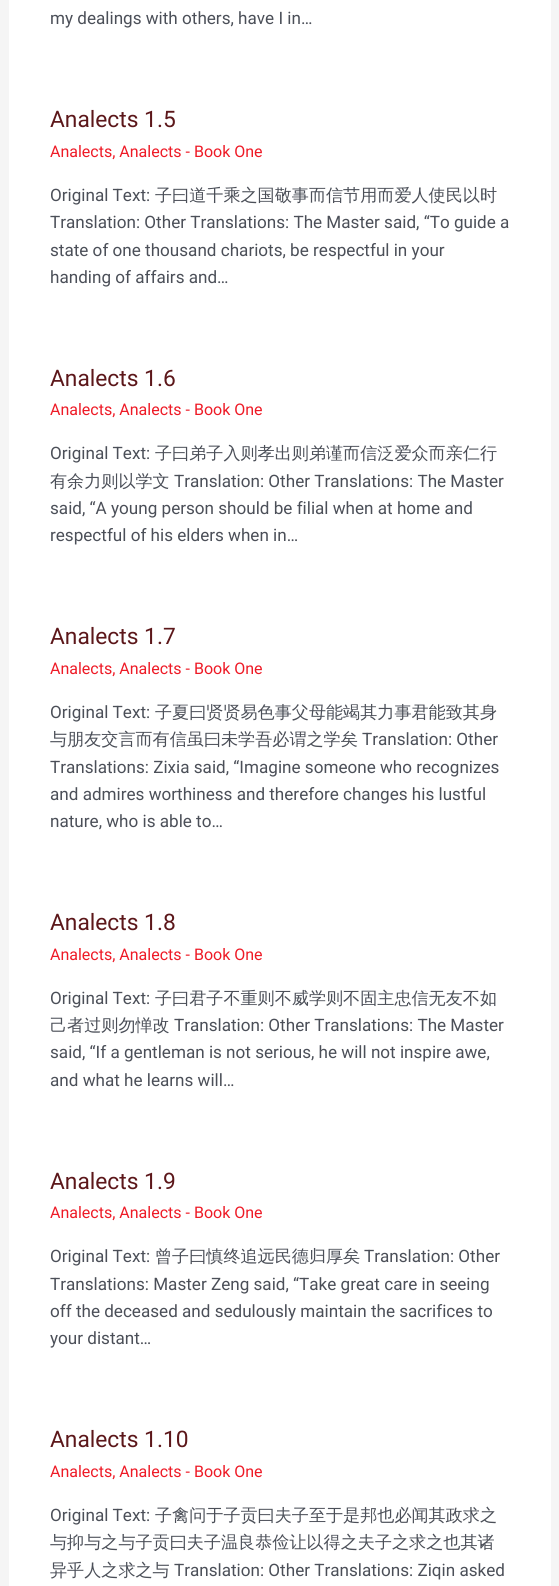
#include <cairo.h>
#include <math.h>
#include <stddef.h>


static void rgb(cairo_t *cr, int r, int g, int b)
{
	cairo_set_source_rgb(cr, r / 255.0, g / 255.0, b / 255.0);
}

static void face(cairo_t *cr, const char *family, double size, int italic, int bold)
{
	cairo_select_font_face(cr, family, italic ? CAIRO_FONT_SLANT_ITALIC : CAIRO_FONT_SLANT_NORMAL,
		bold ? CAIRO_FONT_WEIGHT_BOLD : CAIRO_FONT_WEIGHT_NORMAL);
	cairo_set_font_size(cr, size);
}

static void label(cairo_t *cr, double x, double y, const char *s)
{
	cairo_move_to(cr, x, y);
	cairo_show_text(cr, s);
}

static void rect(cairo_t *cr, double x, double y, double w, double h)
{
	cairo_rectangle(cr, x, y, w, h);
	cairo_fill(cr);
}

static void draw(cairo_t *cr) {
	rgb(cr, 245, 245, 245);
	cairo_paint(cr);
	rgb(cr, 255, 255, 255);
	rect(cr, 9, 0, 542, 1586);
	face(cr, "Roboto", 17.1, 0, 0);
	rgb(cr, 75, 79, 88);
	label(cr, 50, 24, "my dealings with others, have I in…");
	face(cr, "Roboto", 22.75, 0, 0);
	rgb(cr, 92, 23, 26);
	label(cr, 50, 127, "Analects 1.5");
	face(cr, "Roboto", 16, 0, 0);
	rgb(cr, 238, 26, 38);
	label(cr, 50, 157, "Analects, Analects - Book One");
	face(cr, "Roboto", 17.1, 0, 0);
	rgb(cr, 75, 79, 88);
	label(cr, 50, 201, "Original Text:");
	face(cr, "WenQuanYi Zen Hei Medium", 17.1, 0, 0);
	label(cr, 155, 201, "子曰道千乘之国敬事而信节用而爱人使民以时");
	face(cr, "Roboto", 17.1, 0, 0);
	label(cr, 50, 228, "Translation: Other Translations: The Master said, “To guide a");
	label(cr, 50, 256, "state of one thousand chariots, be respectful in your");
	label(cr, 50, 283, "handing of affairs and…");
	face(cr, "Roboto", 22.75, 0, 0);
	rgb(cr, 92, 23, 26);
	label(cr, 50, 386, "Analects 1.6");
	face(cr, "Roboto", 16, 0, 0);
	rgb(cr, 238, 26, 38);
	label(cr, 50, 415, "Analects, Analects - Book One");
	face(cr, "Roboto", 17.1, 0, 0);
	rgb(cr, 75, 79, 88);
	label(cr, 50, 459, "Original Text:");
	face(cr, "WenQuanYi Zen Hei Medium", 17.1, 0, 0);
	label(cr, 155, 459, "子曰弟子入则孝出则弟谨而信泛爱众而亲仁行");
	label(cr, 50, 487, "有余力则以学文");
	face(cr, "Roboto", 17.1, 0, 0);
	label(cr, 174, 487, "Translation: Other Translations: The Master");
	label(cr, 50, 514, "said, “A young person should be filial when at home and");
	label(cr, 50, 541, "respectful of his elders when in…");
	face(cr, "Roboto", 22.75, 0, 0);
	rgb(cr, 92, 23, 26);
	label(cr, 50, 644, "Analects 1.7");
	face(cr, "Roboto", 16, 0, 0);
	rgb(cr, 238, 26, 38);
	label(cr, 50, 674, "Analects, Analects - Book One");
	face(cr, "Roboto", 17.1, 0, 0);
	rgb(cr, 75, 79, 88);
	label(cr, 50, 718, "Original Text:");
	face(cr, "WenQuanYi Zen Hei Medium", 17.1, 0, 0);
	label(cr, 155, 718, "子夏曰贤贤易色事父母能竭其力事君能致其身");
	label(cr, 50, 745, "与朋友交言而有信虽曰未学吾必谓之学矣");
	face(cr, "Roboto", 17.1, 0, 0);
	label(cr, 362, 745, "Translation: Other");
	label(cr, 50, 773, "Translations: Zixia said, “Imagine someone who recognizes");
	label(cr, 50, 800, "and admires worthiness and therefore changes his lustful");
	label(cr, 50, 827, "nature, who is able to…");
	face(cr, "Roboto", 22.75, 0, 0);
	rgb(cr, 92, 23, 26);
	label(cr, 50, 930, "Analects 1.8");
	face(cr, "Roboto", 16, 0, 0);
	rgb(cr, 238, 26, 38);
	label(cr, 50, 960, "Analects, Analects - Book One");
	face(cr, "Roboto", 17.1, 0, 0);
	rgb(cr, 75, 79, 88);
	label(cr, 50, 1004, "Original Text:");
	face(cr, "WenQuanYi Zen Hei Medium", 17.1, 0, 0);
	label(cr, 155, 1004, "子曰君子不重则不威学则不固主忠信无友不如");
	label(cr, 50, 1031, "己者过则勿惮改");
	face(cr, "Roboto", 17.1, 0, 0);
	label(cr, 174, 1031, "Translation: Other Translations: The Master");
	label(cr, 50, 1058, "said, “If a gentleman is not serious, he will not inspire awe,");
	label(cr, 50, 1086, "and what he learns will…");
	face(cr, "Roboto", 22.75, 0, 0);
	rgb(cr, 92, 23, 26);
	label(cr, 50, 1189, "Analects 1.9");
	face(cr, "Roboto", 16, 0, 0);
	rgb(cr, 238, 26, 38);
	label(cr, 50, 1218, "Analects, Analects - Book One");
	face(cr, "Roboto", 17.1, 0, 0);
	rgb(cr, 75, 79, 88);
	label(cr, 50, 1262, "Original Text:");
	face(cr, "WenQuanYi Zen Hei Medium", 17.1, 0, 0);
	label(cr, 155, 1262, "曾子曰慎终追远民德归厚矣");
	face(cr, "Roboto", 17.1, 0, 0);
	label(cr, 364, 1262, "Translation: Other");
	label(cr, 50, 1290, "Translations: Master Zeng said, “Take great care in seeing");
	label(cr, 50, 1317, "off the deceased and sedulously maintain the sacrifices to");
	label(cr, 50, 1344, "your distant…");
	face(cr, "Roboto", 22.75, 0, 0);
	rgb(cr, 92, 23, 26);
	label(cr, 50, 1447, "Analects 1.10");
	face(cr, "Roboto", 16, 0, 0);
	rgb(cr, 238, 26, 38);
	label(cr, 50, 1477, "Analects, Analects - Book One");
	face(cr, "Roboto", 17.1, 0, 0);
	rgb(cr, 75, 79, 88);
	label(cr, 50, 1521, "Original Text:");
	face(cr, "WenQuanYi Zen Hei Medium", 17.1, 0, 0);
	label(cr, 155, 1521, "子禽问于子贡曰夫子至于是邦也必闻其政求之");
	label(cr, 50, 1548, "与抑与之与子贡曰夫子温良恭俭让以得之夫子之求之也其诸");
	label(cr, 50, 1576, "异乎人之求之与");
	face(cr, "Roboto", 17.1, 0, 0);
	label(cr, 174, 1576, "Translation: Other Translations: Ziqin asked");
}

int main(void) {
	cairo_surface_t *surface = cairo_image_surface_create(CAIRO_FORMAT_RGB24, 559, 1586);
	cairo_t *cr = cairo_create(surface);
	cairo_font_options_t *options = cairo_font_options_create();
	cairo_font_options_set_hint_metrics(options, CAIRO_HINT_METRICS_OFF);
	cairo_font_options_set_hint_style(options, CAIRO_HINT_STYLE_NONE);
	cairo_set_font_options(cr, options);
	cairo_set_miter_limit(cr, 4);
	draw(cr);
	cairo_surface_write_to_png(surface, "render.png");
	cairo_font_options_destroy(options);
	cairo_destroy(cr);
	cairo_surface_destroy(surface);
	return 0;
}
